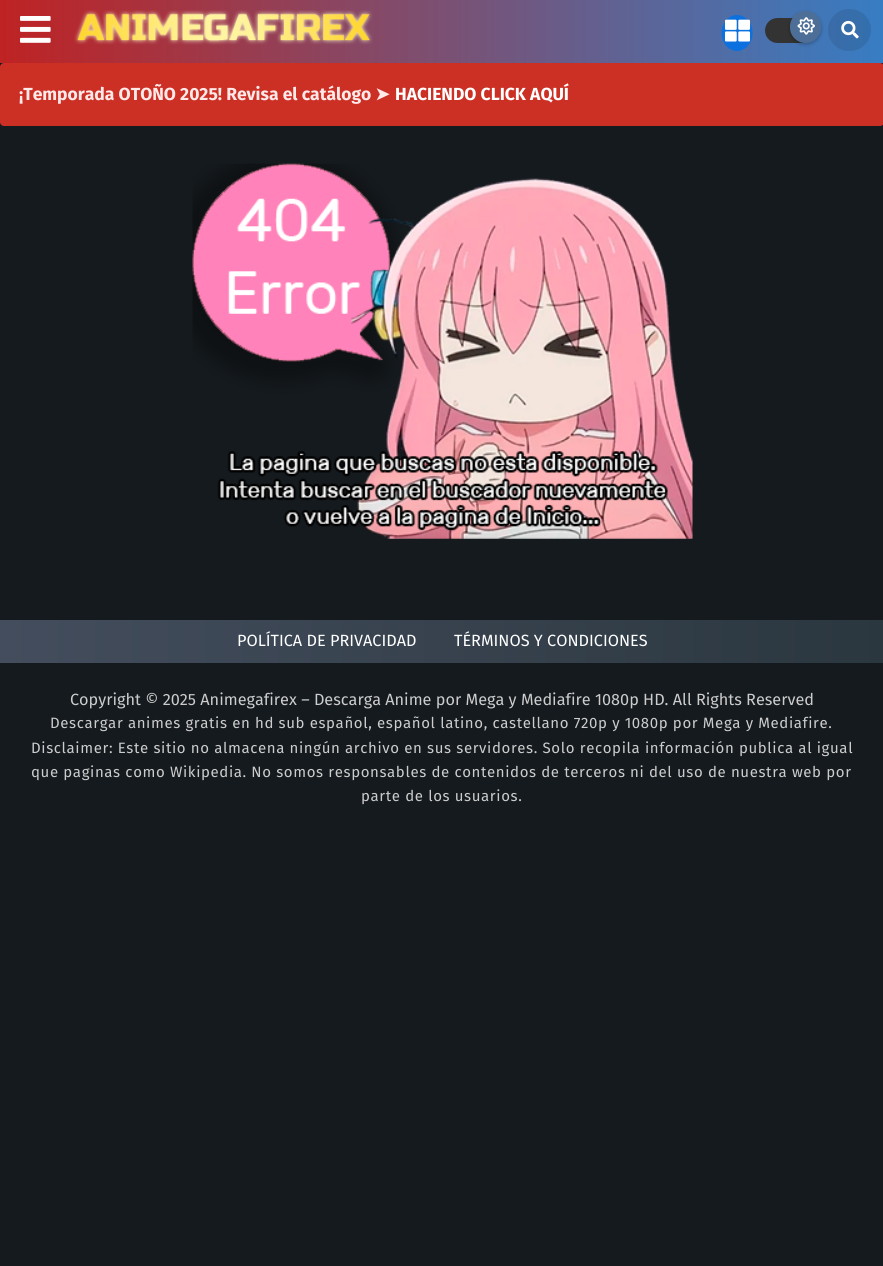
#include <cairo.h>
#include <math.h>
#include <stddef.h>


static void rgb(cairo_t *cr, int r, int g, int b)
{
	cairo_set_source_rgb(cr, r / 255.0, g / 255.0, b / 255.0);
}

static void face(cairo_t *cr, const char *family, double size, int italic, int bold)
{
	cairo_select_font_face(cr, family, italic ? CAIRO_FONT_SLANT_ITALIC : CAIRO_FONT_SLANT_NORMAL,
		bold ? CAIRO_FONT_WEIGHT_BOLD : CAIRO_FONT_WEIGHT_NORMAL);
	cairo_set_font_size(cr, size);
}

static void label(cairo_t *cr, double x, double y, const char *s)
{
	cairo_move_to(cr, x, y);
	cairo_show_text(cr, s);
}

static void tracked(cairo_t *cr, double x, double y, const char *s, double letter, double word)
{
	cairo_move_to(cr, x, y);
	while (*s) {
		char ch[5] = {0};
		int n = 0;
		do ch[n++] = *s++; while ((*s & 0xC0) == 0x80);
		cairo_show_text(cr, ch);
		cairo_rel_move_to(cr, letter + word * (*ch == ' '), 0);
	}
}

static void rect(cairo_t *cr, double x, double y, double w, double h)
{
	cairo_rectangle(cr, x, y, w, h);
	cairo_fill(cr);
}

static void rrect(cairo_t *cr, double x, double y, double w, double h, double r)
{
	cairo_new_sub_path(cr);
	cairo_arc(cr, x + w - r, y + h - r, r, 0, M_PI / 2);
	cairo_arc(cr, x + r, y + h - r, r, M_PI / 2, M_PI);
	cairo_arc(cr, x + r, y + r, r, M_PI, 1.5 * M_PI);
	cairo_arc(cr, x + w - r, y + r, r, 1.5 * M_PI, 2 * M_PI);
	cairo_close_path(cr);
}

static void soft_shadow(cairo_t *cr, double x, double y, double w, double h, double r, double blur, double alpha)
{
	cairo_push_group_with_content(cr, CAIRO_CONTENT_ALPHA);
	cairo_set_operator(cr, CAIRO_OPERATOR_SOURCE);
	for (int i = 15; i >= -15 && fmin(w, h) + blur * i / 3 > 0; i -= 2) {
		double e = blur * i / 6;
		cairo_set_source_rgba(cr, 0, 0, 0, alpha * erfc((i - 1) / 8.5) / 2);
		rrect(cr, x - e, y - e, w + 2 * e, h + 2 * e, fmax(0, fmin(r + e + blur * .6, fmin(w, h) / 2 + e)));
		cairo_fill(cr);
	}
	cairo_pattern_t *soft = cairo_pop_group(cr);
	cairo_mask(cr, soft);
	cairo_pattern_destroy(soft);
}

static void image(cairo_t *cr, const char *path, double x, double y, double w, double h)
{
	cairo_surface_t *image = cairo_image_surface_create_from_png(path);
	cairo_save(cr);
	cairo_set_source_surface(cr, image, x, y);
	cairo_rectangle(cr, x, y, w, h);
	cairo_fill(cr);
	cairo_restore(cr);
	cairo_surface_destroy(image);
}

static void draw(cairo_t *cr) {
	cairo_pattern_t *gradient;
	rgb(cr, 21, 26, 30);
	cairo_paint(cr);
	gradient = cairo_pattern_create_linear(0, 31, 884, 31);
	cairo_pattern_add_color_stop_rgba(gradient, 0, 0.749, 0.137, 0.137, 1);
	cairo_pattern_add_color_stop_rgba(gradient, 1, 0.216, 0.49, 0.765, 1);
	cairo_set_source(cr, gradient);
	cairo_pattern_destroy(gradient);
	rect(cr, 0, 0, 883, 63);
	image(cr, "image0.png", 20, 16, 31, 27);
	image(cr, "image1.png", 74, 10, 299, 35);
	rgb(cr, 12, 112, 222);
	cairo_new_path(cr);
	cairo_move_to(cr, 737, 15);
	cairo_curve_to(cr, 745.5, 15, 752.5, 23, 752.5, 33);
	cairo_curve_to(cr, 752.5, 43, 745.5, 51, 737, 51);
	cairo_curve_to(cr, 728.5, 51, 721.5, 43, 721.5, 33);
	cairo_curve_to(cr, 721.5, 23, 728.5, 15, 737, 15);
	cairo_close_path(cr);
	cairo_fill(cr);
	image(cr, "image2.png", 725, 19, 25, 23);
	rgb(cr, 51, 51, 51);
	rrect(cr, 765, 18, 50, 25, 12.5);
	cairo_fill(cr);
	rgb(cr, 0, 0, 0);
	soft_shadow(cr, 790, 13, 31, 31, 15.5, 2, 0.3);
	rgb(cr, 77, 111, 151);
	rrect(cr, 790, 11, 31, 32, 15.5);
	cairo_fill(cr);
	image(cr, "image3.png", 797, 17, 18, 18);
	cairo_set_source_rgba(cr, 0, 0, 0, 0.1);
	rrect(cr, 828, 9, 43, 42, 21);
	cairo_fill(cr);
	image(cr, "image4.png", 841, 20, 18, 19);
	rgb(cr, 204, 47, 36);
	rrect(cr, 0, 63, 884, 63, 4);
	cairo_fill(cr);
	face(cr, "Fira Sans", 17.5, 0, 1);
	rgb(cr, 255, 233, 233);
	label(cr, 19, 100, "¡Temporada OTOÑO 2025! Revisa el catálogo");
	face(cr, "DejaVu Sans", 17.5, 0, 1);
	label(cr, 375, 100, "➤");
	face(cr, "Fira Sans", 17.5, 0, 1);
	rgb(cr, 255, 255, 255);
	label(cr, 395, 100, "HACIENDO CLICK AQUÍ");
	image(cr, "image5.png", 192, 163, 501, 376);
	gradient = cairo_pattern_create_linear(0, 641, 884, 641);
	cairo_pattern_add_color_stop_rgba(gradient, 0, 0.263, 0.302, 0.365, 1);
	cairo_pattern_add_color_stop_rgba(gradient, 1, 0.169, 0.216, 0.247, 1);
	cairo_set_source(cr, gradient);
	cairo_pattern_destroy(gradient);
	rect(cr, 0, 620, 883, 43);
	face(cr, "Fira Sans", 16.25, 0, 0);
	rgb(cr, 255, 255, 255);
	label(cr, 237, 646, "POLÍTICA DE PRIVACIDAD");
	label(cr, 454, 646, "TÉRMINOS Y CONDICIONES");
	rgb(cr, 204, 204, 204);
	label(cr, 70, 705, "Copyright © 2025 Animegafirex – Descarga Anime por Mega y Mediafire 1080p HD. All Rights Reserved");
	face(cr, "Fira Sans", 15, 0, 0);
	tracked(cr, 50, 728, "Descargar animes gratis en hd sub español, español latino, castellano 720p y 1080p por Mega y Mediafire.", 0.62, 0);
	tracked(cr, 31, 753, "Disclaimer: Este sitio no almacena ningún archivo en sus servidores. Solo recopila información publica al igual", 0.62, 0);
	tracked(cr, 31, 777, "que paginas como Wikipedia. No somos responsables de contenidos de terceros ni del uso de nuestra web por", 0.62, 0);
	tracked(cr, 361, 801, "parte de los usuarios.", 0.62, 0);
}

int main(void) {
	cairo_surface_t *surface = cairo_image_surface_create(CAIRO_FORMAT_RGB24, 883, 1266);
	cairo_t *cr = cairo_create(surface);
	cairo_font_options_t *options = cairo_font_options_create();
	cairo_font_options_set_hint_metrics(options, CAIRO_HINT_METRICS_OFF);
	cairo_font_options_set_hint_style(options, CAIRO_HINT_STYLE_NONE);
	cairo_set_font_options(cr, options);
	cairo_set_miter_limit(cr, 4);
	draw(cr);
	cairo_surface_write_to_png(surface, "render.png");
	cairo_font_options_destroy(options);
	cairo_destroy(cr);
	cairo_surface_destroy(surface);
	return 0;
}
